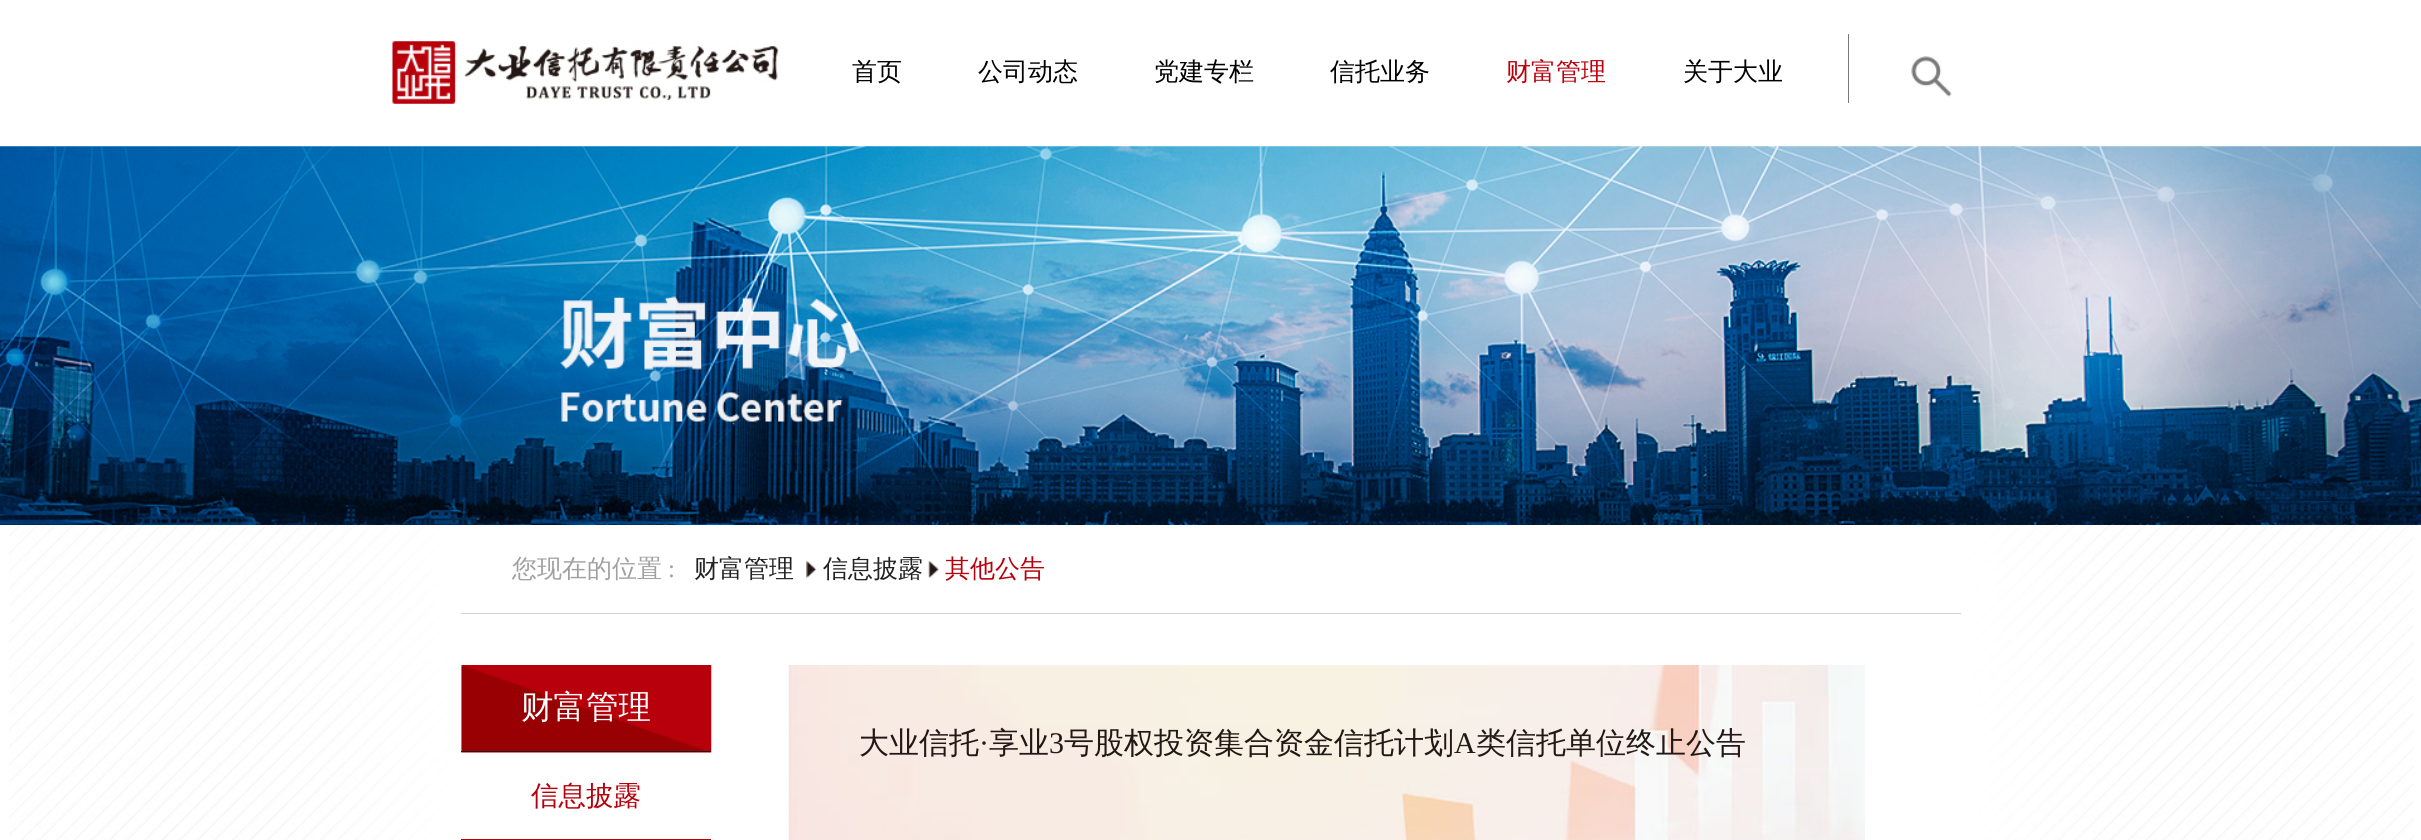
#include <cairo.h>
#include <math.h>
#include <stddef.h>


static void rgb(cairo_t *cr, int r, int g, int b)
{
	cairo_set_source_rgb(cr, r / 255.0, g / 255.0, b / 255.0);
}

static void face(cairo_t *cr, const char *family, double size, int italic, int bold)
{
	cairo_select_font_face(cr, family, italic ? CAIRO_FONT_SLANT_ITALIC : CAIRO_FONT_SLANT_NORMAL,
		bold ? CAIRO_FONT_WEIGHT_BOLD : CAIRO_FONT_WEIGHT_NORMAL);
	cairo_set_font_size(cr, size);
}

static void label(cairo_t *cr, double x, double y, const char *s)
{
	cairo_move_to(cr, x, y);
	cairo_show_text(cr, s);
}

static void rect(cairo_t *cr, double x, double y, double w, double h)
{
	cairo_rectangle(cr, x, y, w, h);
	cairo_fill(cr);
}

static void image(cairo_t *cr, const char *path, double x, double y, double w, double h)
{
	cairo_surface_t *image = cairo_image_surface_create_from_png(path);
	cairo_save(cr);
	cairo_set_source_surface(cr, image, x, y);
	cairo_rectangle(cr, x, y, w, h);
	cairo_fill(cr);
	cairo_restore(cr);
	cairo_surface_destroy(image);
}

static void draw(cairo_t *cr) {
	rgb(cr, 255, 255, 255);
	cairo_paint(cr);
	image(cr, "image0.png", 9, 146, 2405, 694);
	image(cr, "image1.png", 392, 41, 387, 63);
	face(cr, "WenQuanYi Zen Hei Medium", 25, 0, 0);
	rgb(cr, 0, 0, 0);
	label(cr, 852, 80, "首页");
	label(cr, 978, 80, "公司动态");
	label(cr, 1154, 80, "党建专栏");
	label(cr, 1330, 80, "信托业务");
	rgb(cr, 184, 0, 11);
	label(cr, 1506, 80, "财富管理");
	rgb(cr, 0, 0, 0);
	label(cr, 1683, 80, "关于大业");
	rgb(cr, 121, 121, 121);
	rect(cr, 1848, 34, 1, 69);
	image(cr, "image2.png", 1911, 56, 41, 41);
	image(cr, "image3.png", 0, 146, 2421, 379);
	rgb(cr, 210, 210, 210);
	rect(cr, 461, 613, 1500, 1);
	rgb(cr, 160, 160, 160);
	label(cr, 512, 577, "您现在的位置");
	face(cr, "Liberation Serif", 25, 0, 0);
	label(cr, 668, 577, ":");
	face(cr, "WenQuanYi Zen Hei Medium", 25, 0, 0);
	rgb(cr, 34, 34, 34);
	label(cr, 694, 577, "财富管理");
	image(cr, "image4.png", 806, 561, 11, 17);
	label(cr, 823, 577, "信息披露");
	image(cr, "image5.png", 928, 561, 11, 17);
	rgb(cr, 184, 0, 11);
	label(cr, 945, 577, "其他公告");
	image(cr, "image6.png", 461, 665, 251, 88);
	rgb(cr, 35, 24, 21);
	rect(cr, 461, 751, 250, 1);
	face(cr, "WenQuanYi Zen Hei Medium", 32.5, 0, 0);
	rgb(cr, 255, 255, 255);
	label(cr, 521, 718, "财富管理");
	rgb(cr, 184, 0, 11);
	rect(cr, 461, 839, 250, 1);
	face(cr, "WenQuanYi Zen Hei Medium", 27.5, 0, 0);
	label(cr, 531, 805, "信息披露");
	image(cr, "image7.png", 788, 665, 1077, 175);
	face(cr, "WenQuanYi Zen Hei Medium", 30, 0, 0);
	rgb(cr, 35, 24, 21);
	label(cr, 859, 753, "大业信托");
	face(cr, "Liberation Serif", 30, 0, 0);
	label(cr, 979, 753, "·");
	face(cr, "WenQuanYi Zen Hei Medium", 30, 0, 0);
	label(cr, 989, 753, "享业");
	face(cr, "Liberation Serif", 30, 0, 0);
	label(cr, 1049, 753, "3");
	face(cr, "WenQuanYi Zen Hei Medium", 30, 0, 0);
	label(cr, 1064, 753, "号股权投资集合资金信托计划");
	face(cr, "Liberation Serif", 30, 0, 0);
	label(cr, 1454, 753, "A");
	face(cr, "WenQuanYi Zen Hei Medium", 30, 0, 0);
	label(cr, 1476, 753, "类信托单位终止公告");
}

int main(void) {
	cairo_surface_t *surface = cairo_image_surface_create(CAIRO_FORMAT_RGB24, 2421, 840);
	cairo_t *cr = cairo_create(surface);
	cairo_font_options_t *options = cairo_font_options_create();
	cairo_font_options_set_hint_metrics(options, CAIRO_HINT_METRICS_OFF);
	cairo_font_options_set_hint_style(options, CAIRO_HINT_STYLE_NONE);
	cairo_set_font_options(cr, options);
	cairo_set_miter_limit(cr, 4);
	draw(cr);
	cairo_surface_write_to_png(surface, "render.png");
	cairo_font_options_destroy(options);
	cairo_destroy(cr);
	cairo_surface_destroy(surface);
	return 0;
}
